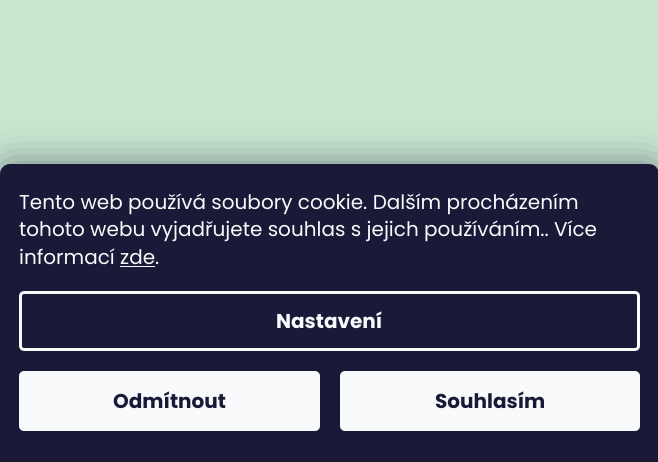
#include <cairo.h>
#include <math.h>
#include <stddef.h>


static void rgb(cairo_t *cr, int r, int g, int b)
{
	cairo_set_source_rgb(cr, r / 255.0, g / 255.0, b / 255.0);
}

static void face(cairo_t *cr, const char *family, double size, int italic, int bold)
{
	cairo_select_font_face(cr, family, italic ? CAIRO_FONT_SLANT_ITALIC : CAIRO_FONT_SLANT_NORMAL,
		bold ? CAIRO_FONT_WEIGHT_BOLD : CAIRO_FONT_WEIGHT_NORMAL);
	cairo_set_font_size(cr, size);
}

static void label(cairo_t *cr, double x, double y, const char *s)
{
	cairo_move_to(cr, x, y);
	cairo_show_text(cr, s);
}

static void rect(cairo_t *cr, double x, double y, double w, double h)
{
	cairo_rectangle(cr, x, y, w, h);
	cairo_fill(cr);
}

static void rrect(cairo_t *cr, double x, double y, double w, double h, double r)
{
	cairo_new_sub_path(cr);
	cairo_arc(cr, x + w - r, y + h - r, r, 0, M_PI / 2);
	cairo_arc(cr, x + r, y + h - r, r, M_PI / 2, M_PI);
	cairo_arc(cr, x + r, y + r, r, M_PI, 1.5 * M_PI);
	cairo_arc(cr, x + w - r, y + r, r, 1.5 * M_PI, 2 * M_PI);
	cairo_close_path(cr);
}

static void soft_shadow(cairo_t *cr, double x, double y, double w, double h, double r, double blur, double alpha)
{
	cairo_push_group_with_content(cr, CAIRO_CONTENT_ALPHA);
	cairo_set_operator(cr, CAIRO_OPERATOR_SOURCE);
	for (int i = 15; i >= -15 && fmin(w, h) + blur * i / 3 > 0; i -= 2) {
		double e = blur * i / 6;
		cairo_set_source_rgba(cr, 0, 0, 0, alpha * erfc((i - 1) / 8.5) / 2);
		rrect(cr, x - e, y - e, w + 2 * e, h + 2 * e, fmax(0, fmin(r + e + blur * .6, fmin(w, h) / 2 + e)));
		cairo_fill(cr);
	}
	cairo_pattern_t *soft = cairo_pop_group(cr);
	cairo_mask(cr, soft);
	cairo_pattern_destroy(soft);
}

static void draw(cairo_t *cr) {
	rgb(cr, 200, 231, 208);
	cairo_paint(cr);
	rgb(cr, 27, 25, 57);
	soft_shadow(cr, 0, 164, 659, 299, 10, 19, 0.5);
	rgb(cr, 26, 25, 55);
	cairo_new_path(cr);
	cairo_move_to(cr, 10, 164);
	cairo_line_to(cr, 649, 164);
	cairo_curve_to(cr, 654.5, 164, 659, 168.5, 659, 174);
	cairo_line_to(cr, 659, 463);
	cairo_line_to(cr, 0, 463);
	cairo_line_to(cr, 0, 174);
	cairo_curve_to(cr, 0, 168.5, 4.5, 164, 10, 164);
	cairo_close_path(cr);
	cairo_fill(cr);
	face(cr, "Poppins", 20, 0, 0);
	rgb(cr, 248, 250, 251);
	label(cr, 19, 209, "Tento web používá soubory cookie. Dalším procházením");
	label(cr, 19, 236, "tohoto webu vyjadřujete souhlas s jejich používáním.. Více");
	label(cr, 19, 264, "informací zde.");
	rect(cr, 120, 266, 35, 1);
	rrect(cr, 20.5, 292.5, 618, 57, 3.5);
	cairo_set_line_width(cr, 3);
	cairo_stroke(cr);
	face(cr, "Poppins", 20, 0, 1);
	label(cr, 276, 328, "Nastavení");
	rrect(cr, 19, 371, 301, 60, 5);
	cairo_fill(cr);
	rgb(cr, 26, 25, 55);
	label(cr, 113, 408, "Odmítnout");
	rgb(cr, 248, 250, 251);
	rrect(cr, 340, 371, 300, 60, 5);
	cairo_fill(cr);
	rgb(cr, 26, 25, 55);
	label(cr, 435, 408, "Souhlasím");
}

int main(void) {
	cairo_surface_t *surface = cairo_image_surface_create(CAIRO_FORMAT_RGB24, 658, 462);
	cairo_t *cr = cairo_create(surface);
	cairo_font_options_t *options = cairo_font_options_create();
	cairo_font_options_set_hint_metrics(options, CAIRO_HINT_METRICS_OFF);
	cairo_font_options_set_hint_style(options, CAIRO_HINT_STYLE_NONE);
	cairo_set_font_options(cr, options);
	cairo_set_miter_limit(cr, 4);
	draw(cr);
	cairo_surface_write_to_png(surface, "render.png");
	cairo_font_options_destroy(options);
	cairo_destroy(cr);
	cairo_surface_destroy(surface);
	return 0;
}
